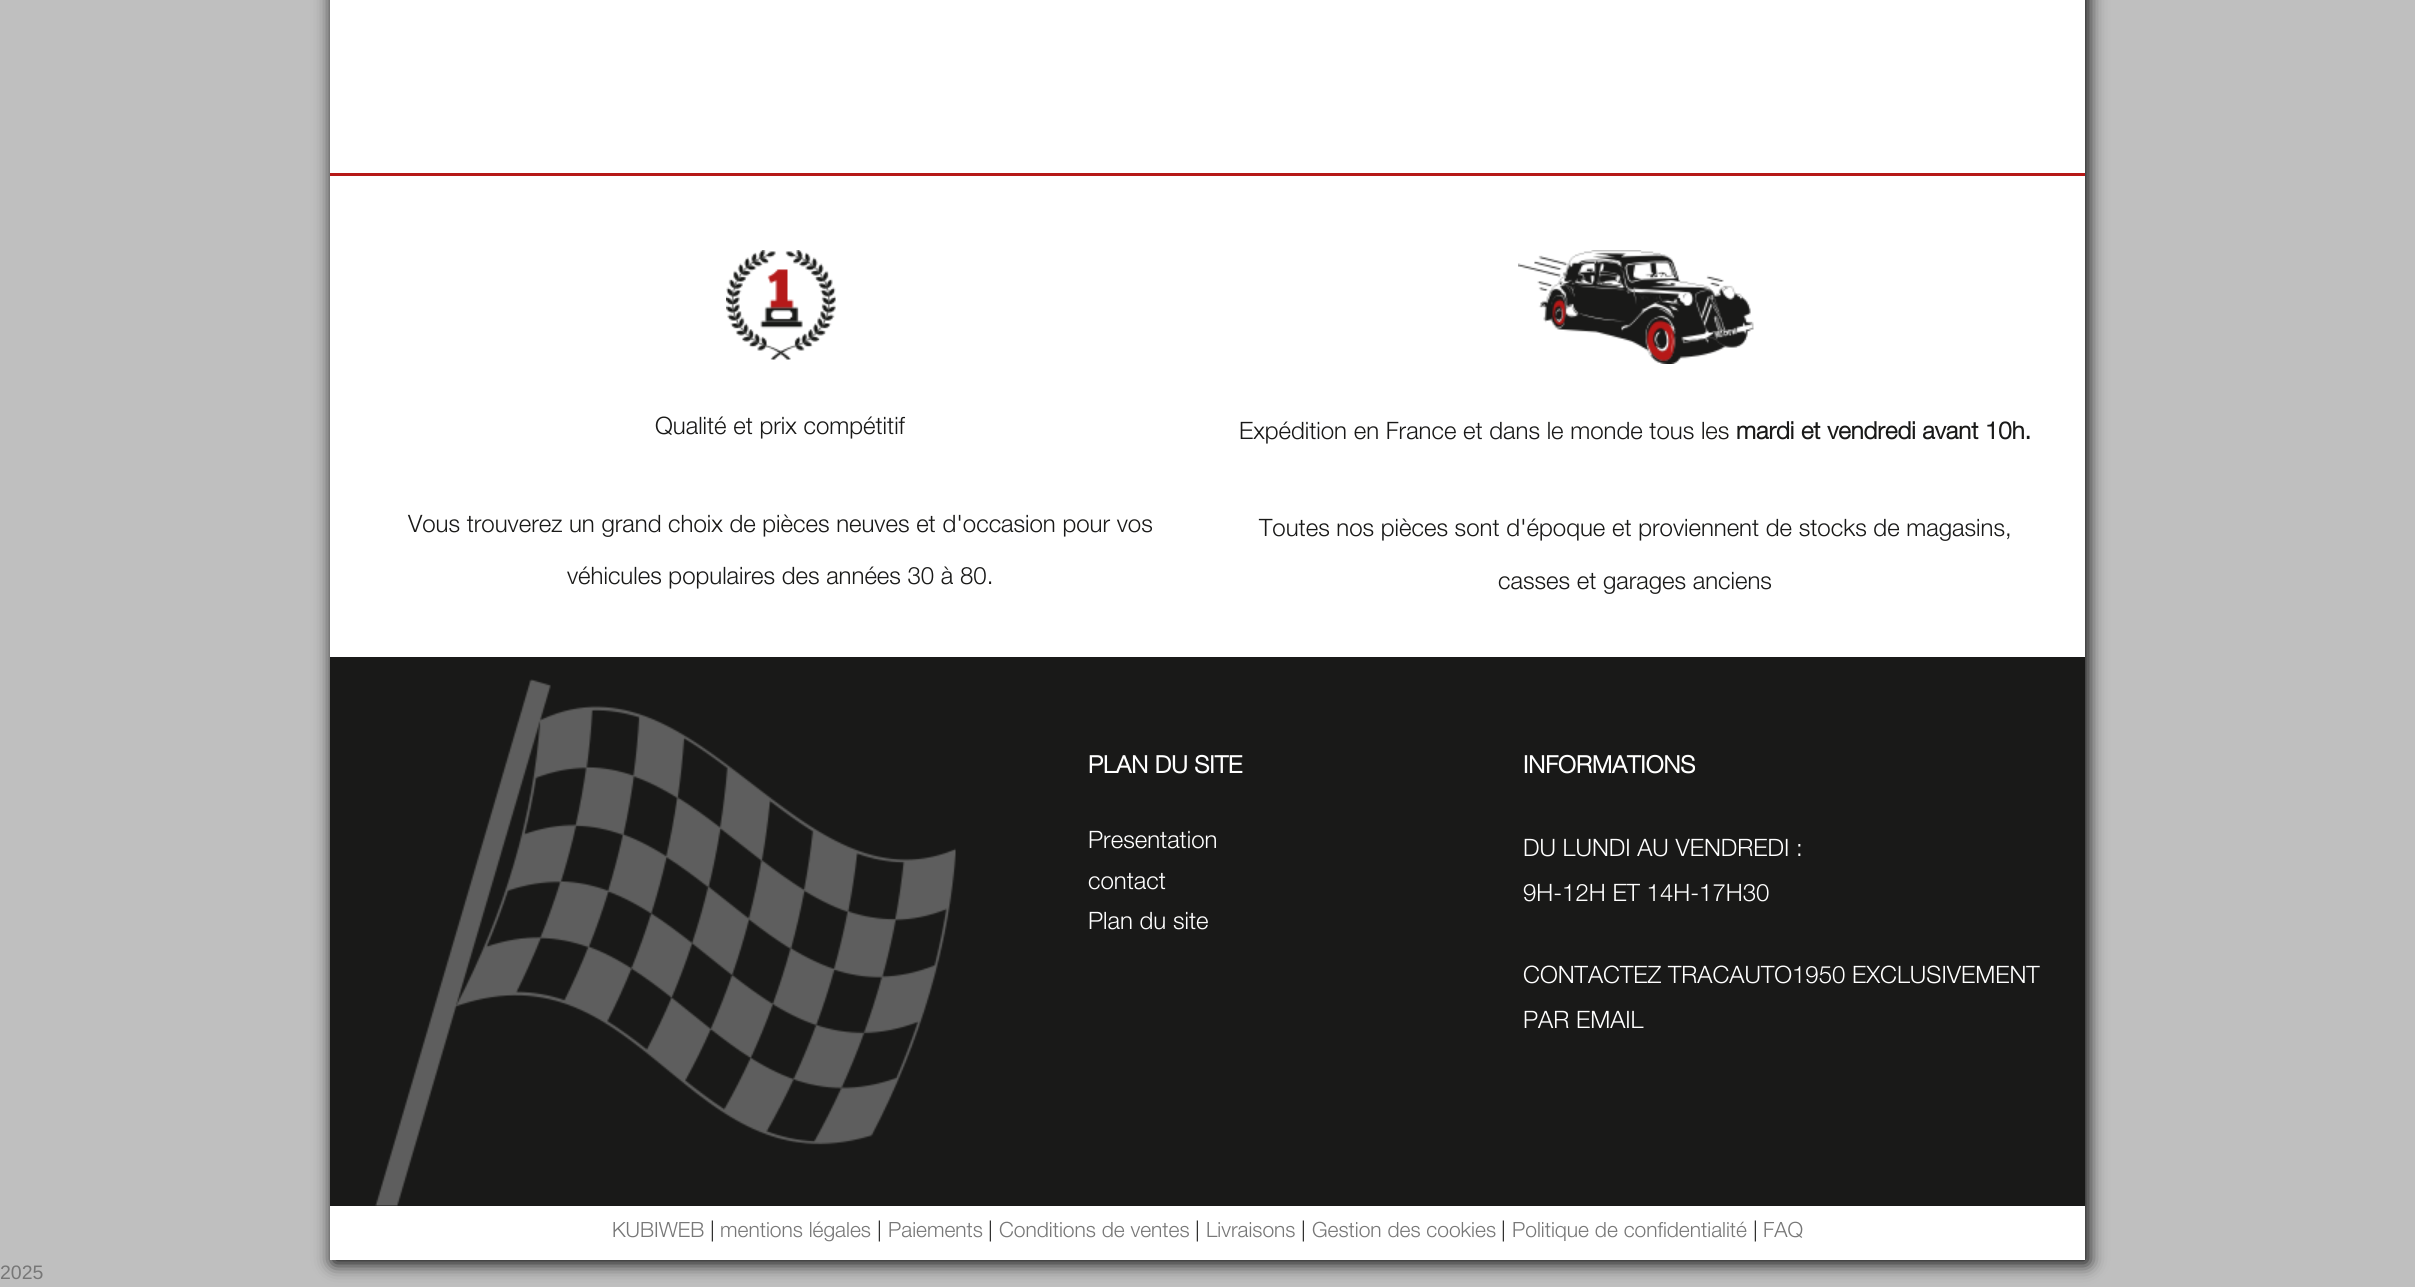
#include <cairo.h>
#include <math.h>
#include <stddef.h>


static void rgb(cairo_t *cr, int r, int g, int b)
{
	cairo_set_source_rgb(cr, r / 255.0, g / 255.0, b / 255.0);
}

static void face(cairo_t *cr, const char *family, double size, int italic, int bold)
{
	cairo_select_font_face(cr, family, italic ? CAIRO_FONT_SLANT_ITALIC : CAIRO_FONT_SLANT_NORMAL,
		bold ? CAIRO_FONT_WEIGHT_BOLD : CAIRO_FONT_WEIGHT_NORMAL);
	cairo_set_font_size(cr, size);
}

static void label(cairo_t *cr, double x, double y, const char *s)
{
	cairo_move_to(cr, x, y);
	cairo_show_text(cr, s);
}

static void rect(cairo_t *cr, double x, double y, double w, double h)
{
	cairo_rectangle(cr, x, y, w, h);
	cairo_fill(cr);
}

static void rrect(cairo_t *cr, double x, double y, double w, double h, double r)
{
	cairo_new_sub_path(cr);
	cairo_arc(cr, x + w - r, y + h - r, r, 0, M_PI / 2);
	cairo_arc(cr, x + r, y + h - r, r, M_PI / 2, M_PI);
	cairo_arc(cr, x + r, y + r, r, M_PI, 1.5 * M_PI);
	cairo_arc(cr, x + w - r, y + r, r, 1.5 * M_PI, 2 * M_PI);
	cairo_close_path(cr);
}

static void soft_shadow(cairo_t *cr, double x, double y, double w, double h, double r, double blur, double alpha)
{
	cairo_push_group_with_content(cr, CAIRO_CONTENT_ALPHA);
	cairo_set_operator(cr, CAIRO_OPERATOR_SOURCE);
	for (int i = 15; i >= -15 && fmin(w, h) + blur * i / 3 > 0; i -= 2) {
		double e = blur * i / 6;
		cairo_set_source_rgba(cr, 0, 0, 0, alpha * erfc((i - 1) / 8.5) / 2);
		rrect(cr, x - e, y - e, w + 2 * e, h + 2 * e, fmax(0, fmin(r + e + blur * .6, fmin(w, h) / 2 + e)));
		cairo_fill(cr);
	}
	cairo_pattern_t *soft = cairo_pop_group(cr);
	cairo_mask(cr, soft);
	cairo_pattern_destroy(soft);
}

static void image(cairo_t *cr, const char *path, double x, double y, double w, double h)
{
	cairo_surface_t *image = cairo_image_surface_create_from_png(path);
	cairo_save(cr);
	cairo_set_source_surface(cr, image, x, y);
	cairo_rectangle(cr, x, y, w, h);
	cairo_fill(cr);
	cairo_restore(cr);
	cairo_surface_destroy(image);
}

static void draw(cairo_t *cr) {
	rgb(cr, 191, 191, 191);
	cairo_paint(cr);
	rgb(cr, 0, 0, 0);
	soft_shadow(cr, 333, -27, 1755, 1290, 0, 9, 1);
	rgb(cr, 255, 255, 255);
	rect(cr, 330, 0, 1755, 173);
	rect(cr, 330, 176, 1755, 481);
	rgb(cr, 182, 24, 23);
	rect(cr, 330, 173, 1755, 3);
	image(cr, "image0.png", 726, 250, 110, 110);
	face(cr, "Helvetica Neue Light", 24, 0, 0);
	rgb(cr, 25, 25, 24);
	label(cr, 655, 434, "Qualité et prix compétitif");
	label(cr, 408, 532, "Vous trouverez un grand choix de pièces neuves et d'occasion pour vos");
	label(cr, 567, 584, "véhicules populaires des années 30 à 80.");
	image(cr, "image1.png", 1518, 250, 236, 114);
	label(cr, 1239, 439, "Expédition en France et dans le monde tous les");
	face(cr, "Helvetica Neue", 24, 0, 1);
	label(cr, 1736, 439, "mardi et vendredi avant 10h.");
	face(cr, "Helvetica Neue Light", 24, 0, 0);
	label(cr, 1259, 536, "Toutes nos pièces sont d'époque et proviennent de stocks de magasins,");
	label(cr, 1498, 589, "casses et garages anciens");
	rect(cr, 330, 657, 1755, 549);
	image(cr, "image2.png", 375, 679, 581, 527);
	face(cr, "Helvetica Neue", 24, 0, 1);
	rgb(cr, 255, 255, 255);
	label(cr, 1088, 773, "PLAN DU SITE");
	face(cr, "Helvetica Neue Light", 24, 0, 0);
	label(cr, 1088, 848, "Presentation");
	label(cr, 1088, 889, "contact");
	label(cr, 1088, 929, "Plan du site");
	face(cr, "Helvetica Neue", 24, 0, 1);
	label(cr, 1523, 773, "INFORMATIONS");
	face(cr, "Helvetica Neue Light", 24, 0, 0);
	label(cr, 1523, 856, "DU LUNDI AU VENDREDI :");
	label(cr, 1523, 901, "9H-12H ET 14H-17H30");
	label(cr, 1523, 983, "CONTACTEZ TRACAUTO1950 EXCLUSIVEMENT");
	label(cr, 1523, 1028, "PAR EMAIL");
	rect(cr, 330, 1206, 1755, 54);
	face(cr, "Helvetica Neue Light", 21, 0, 0);
	rgb(cr, 119, 119, 119);
	label(cr, 612, 1237, "KUBIWEB");
	rgb(cr, 25, 25, 24);
	label(cr, 710, 1237, "|");
	rgb(cr, 119, 119, 119);
	label(cr, 720, 1237, "mentions légales");
	rgb(cr, 25, 25, 24);
	label(cr, 877, 1237, "|");
	rgb(cr, 119, 119, 119);
	label(cr, 888, 1237, "Paiements");
	rgb(cr, 25, 25, 24);
	label(cr, 988, 1237, "|");
	rgb(cr, 119, 119, 119);
	label(cr, 999, 1237, "Conditions de ventes");
	rgb(cr, 25, 25, 24);
	label(cr, 1195, 1237, "|");
	rgb(cr, 119, 119, 119);
	label(cr, 1206, 1237, "Livraisons");
	rgb(cr, 25, 25, 24);
	label(cr, 1301, 1237, "|");
	rgb(cr, 119, 119, 119);
	label(cr, 1312, 1237, "Gestion des cookies");
	rgb(cr, 25, 25, 24);
	label(cr, 1501, 1237, "|");
	rgb(cr, 119, 119, 119);
	label(cr, 1512, 1237, "Politique de confidentialité");
	rgb(cr, 25, 25, 24);
	label(cr, 1753, 1237, "|");
	rgb(cr, 119, 119, 119);
	label(cr, 1763, 1237, "FAQ");
	face(cr, "Liberation Sans", 19.5, 0, 0);
	label(cr, 0, 1279, "2025");
}

int main(void) {
	cairo_surface_t *surface = cairo_image_surface_create(CAIRO_FORMAT_RGB24, 2415, 1287);
	cairo_t *cr = cairo_create(surface);
	cairo_font_options_t *options = cairo_font_options_create();
	cairo_font_options_set_hint_metrics(options, CAIRO_HINT_METRICS_OFF);
	cairo_font_options_set_hint_style(options, CAIRO_HINT_STYLE_NONE);
	cairo_set_font_options(cr, options);
	cairo_set_miter_limit(cr, 4);
	draw(cr);
	cairo_surface_write_to_png(surface, "render.png");
	cairo_font_options_destroy(options);
	cairo_destroy(cr);
	cairo_surface_destroy(surface);
	return 0;
}
